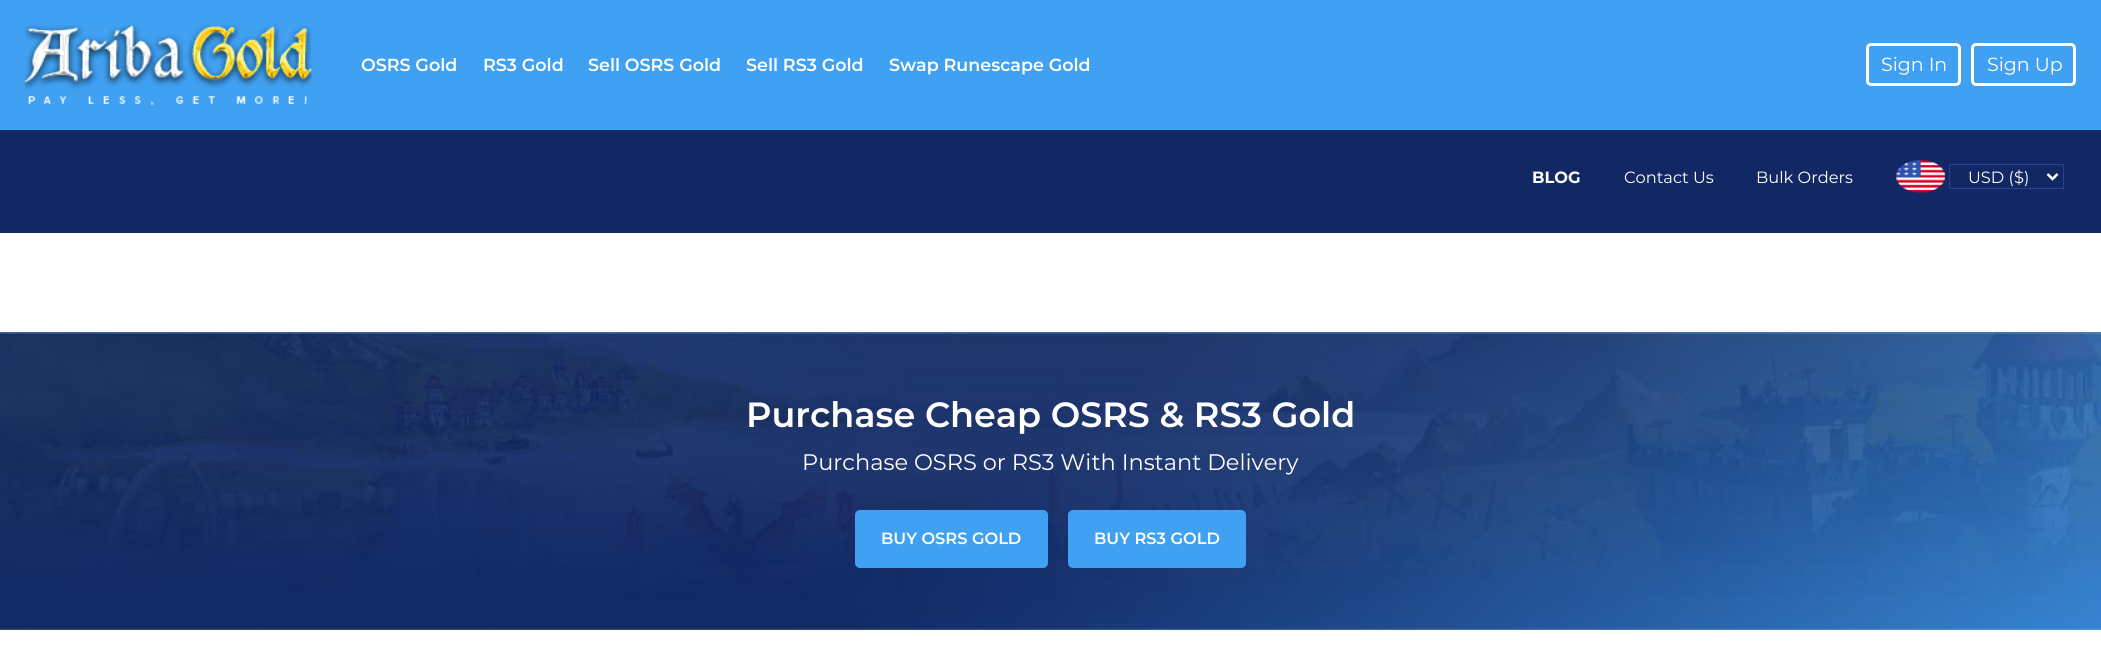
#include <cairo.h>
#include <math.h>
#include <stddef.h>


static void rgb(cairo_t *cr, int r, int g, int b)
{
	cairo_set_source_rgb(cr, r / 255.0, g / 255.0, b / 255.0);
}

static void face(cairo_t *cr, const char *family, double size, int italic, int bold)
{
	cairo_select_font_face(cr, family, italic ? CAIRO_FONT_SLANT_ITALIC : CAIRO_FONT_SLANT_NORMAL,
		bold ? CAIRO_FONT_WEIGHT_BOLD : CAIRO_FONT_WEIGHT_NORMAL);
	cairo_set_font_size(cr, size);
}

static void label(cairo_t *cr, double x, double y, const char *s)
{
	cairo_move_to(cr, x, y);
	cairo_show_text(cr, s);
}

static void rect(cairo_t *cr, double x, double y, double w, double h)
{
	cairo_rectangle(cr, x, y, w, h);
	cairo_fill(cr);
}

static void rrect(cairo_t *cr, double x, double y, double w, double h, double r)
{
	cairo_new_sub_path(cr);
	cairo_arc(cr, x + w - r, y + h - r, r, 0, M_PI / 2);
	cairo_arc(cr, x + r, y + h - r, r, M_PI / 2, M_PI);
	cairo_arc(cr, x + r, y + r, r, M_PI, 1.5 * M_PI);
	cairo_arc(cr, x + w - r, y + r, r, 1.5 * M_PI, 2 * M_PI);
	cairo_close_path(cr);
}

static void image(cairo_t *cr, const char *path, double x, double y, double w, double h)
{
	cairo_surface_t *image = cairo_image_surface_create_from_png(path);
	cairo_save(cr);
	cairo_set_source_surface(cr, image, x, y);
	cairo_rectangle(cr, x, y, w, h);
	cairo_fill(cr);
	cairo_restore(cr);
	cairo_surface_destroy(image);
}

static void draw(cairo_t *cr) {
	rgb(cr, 255, 255, 255);
	cairo_paint(cr);
	rgb(cr, 64, 160, 241);
	rect(cr, 0, 0, 2101, 130);
	image(cr, "image0.png", 25, 25, 287, 80);
	face(cr, "Montserrat SemiBold", 17.5, 0, 0);
	rgb(cr, 255, 255, 255);
	label(cr, 361, 71, "OSRS Gold");
	label(cr, 483, 71, "RS3 Gold");
	label(cr, 588, 71, "Sell OSRS Gold");
	label(cr, 746, 71, "Sell RS3 Gold");
	label(cr, 889, 71, "Swap Runescape Gold");
	rrect(cr, 1867.5, 44.5, 92, 40, 3.5);
	cairo_set_line_width(cr, 3);
	cairo_stroke(cr);
	face(cr, "Montserrat", 19, 0, 0);
	label(cr, 1881, 71, "Sign In");
	rrect(cr, 1972.5, 44.5, 102, 40, 3.5);
	cairo_stroke(cr);
	label(cr, 1987, 71, "Sign Up");
	rgb(cr, 17, 40, 100);
	rect(cr, 0, 130, 2101, 103);
	face(cr, "Montserrat", 16.25, 0, 1);
	rgb(cr, 255, 255, 255);
	label(cr, 1532, 183, "BLOG");
	face(cr, "Montserrat", 16.25, 0, 0);
	label(cr, 1624, 183, "Contact Us");
	label(cr, 1756, 183, "Bulk Orders");
	image(cr, "image1.png", 1896, 160, 49, 33);
	cairo_rectangle(cr, 1949.5, 164.5, 114, 24);
	rgb(cr, 42, 64, 150);
	cairo_set_line_width(cr, 1);
	cairo_stroke(cr);
	cairo_new_path(cr);
	cairo_move_to(cr, 2047.5, 174);
	cairo_line_to(cr, 2052.5, 179);
	cairo_line_to(cr, 2057.5, 174);
	rgb(cr, 255, 255, 255);
	cairo_set_line_width(cr, 2.5);
	cairo_stroke(cr);
	label(cr, 1968, 183, "USD ($)");
	image(cr, "image2.png", 0, 332, 2101, 1);
	image(cr, "image3.png", 0, 332, 2101, 298);
	face(cr, "Montserrat SemiBold", 35, 0, 0);
	label(cr, 746, 427, "Purchase Cheap OSRS & RS3 Gold");
	face(cr, "Montserrat", 22.5, 0, 0);
	label(cr, 802, 470, "Purchase OSRS or RS3 With Instant Delivery");
	rgb(cr, 64, 160, 241);
	rrect(cr, 855, 510, 193, 58, 5);
	cairo_fill(cr);
	face(cr, "Montserrat SemiBold", 16.25, 0, 0);
	rgb(cr, 255, 255, 255);
	label(cr, 881, 544, "BUY OSRS GOLD");
	rgb(cr, 64, 160, 241);
	rrect(cr, 1068, 510, 178, 58, 5);
	cairo_fill(cr);
	rgb(cr, 255, 255, 255);
	label(cr, 1094, 544, "BUY RS3 GOLD");
}

int main(void) {
	cairo_surface_t *surface = cairo_image_surface_create(CAIRO_FORMAT_RGB24, 2101, 649);
	cairo_t *cr = cairo_create(surface);
	cairo_font_options_t *options = cairo_font_options_create();
	cairo_font_options_set_hint_metrics(options, CAIRO_HINT_METRICS_OFF);
	cairo_font_options_set_hint_style(options, CAIRO_HINT_STYLE_NONE);
	cairo_set_font_options(cr, options);
	cairo_set_miter_limit(cr, 4);
	draw(cr);
	cairo_surface_write_to_png(surface, "render.png");
	cairo_font_options_destroy(options);
	cairo_destroy(cr);
	cairo_surface_destroy(surface);
	return 0;
}
